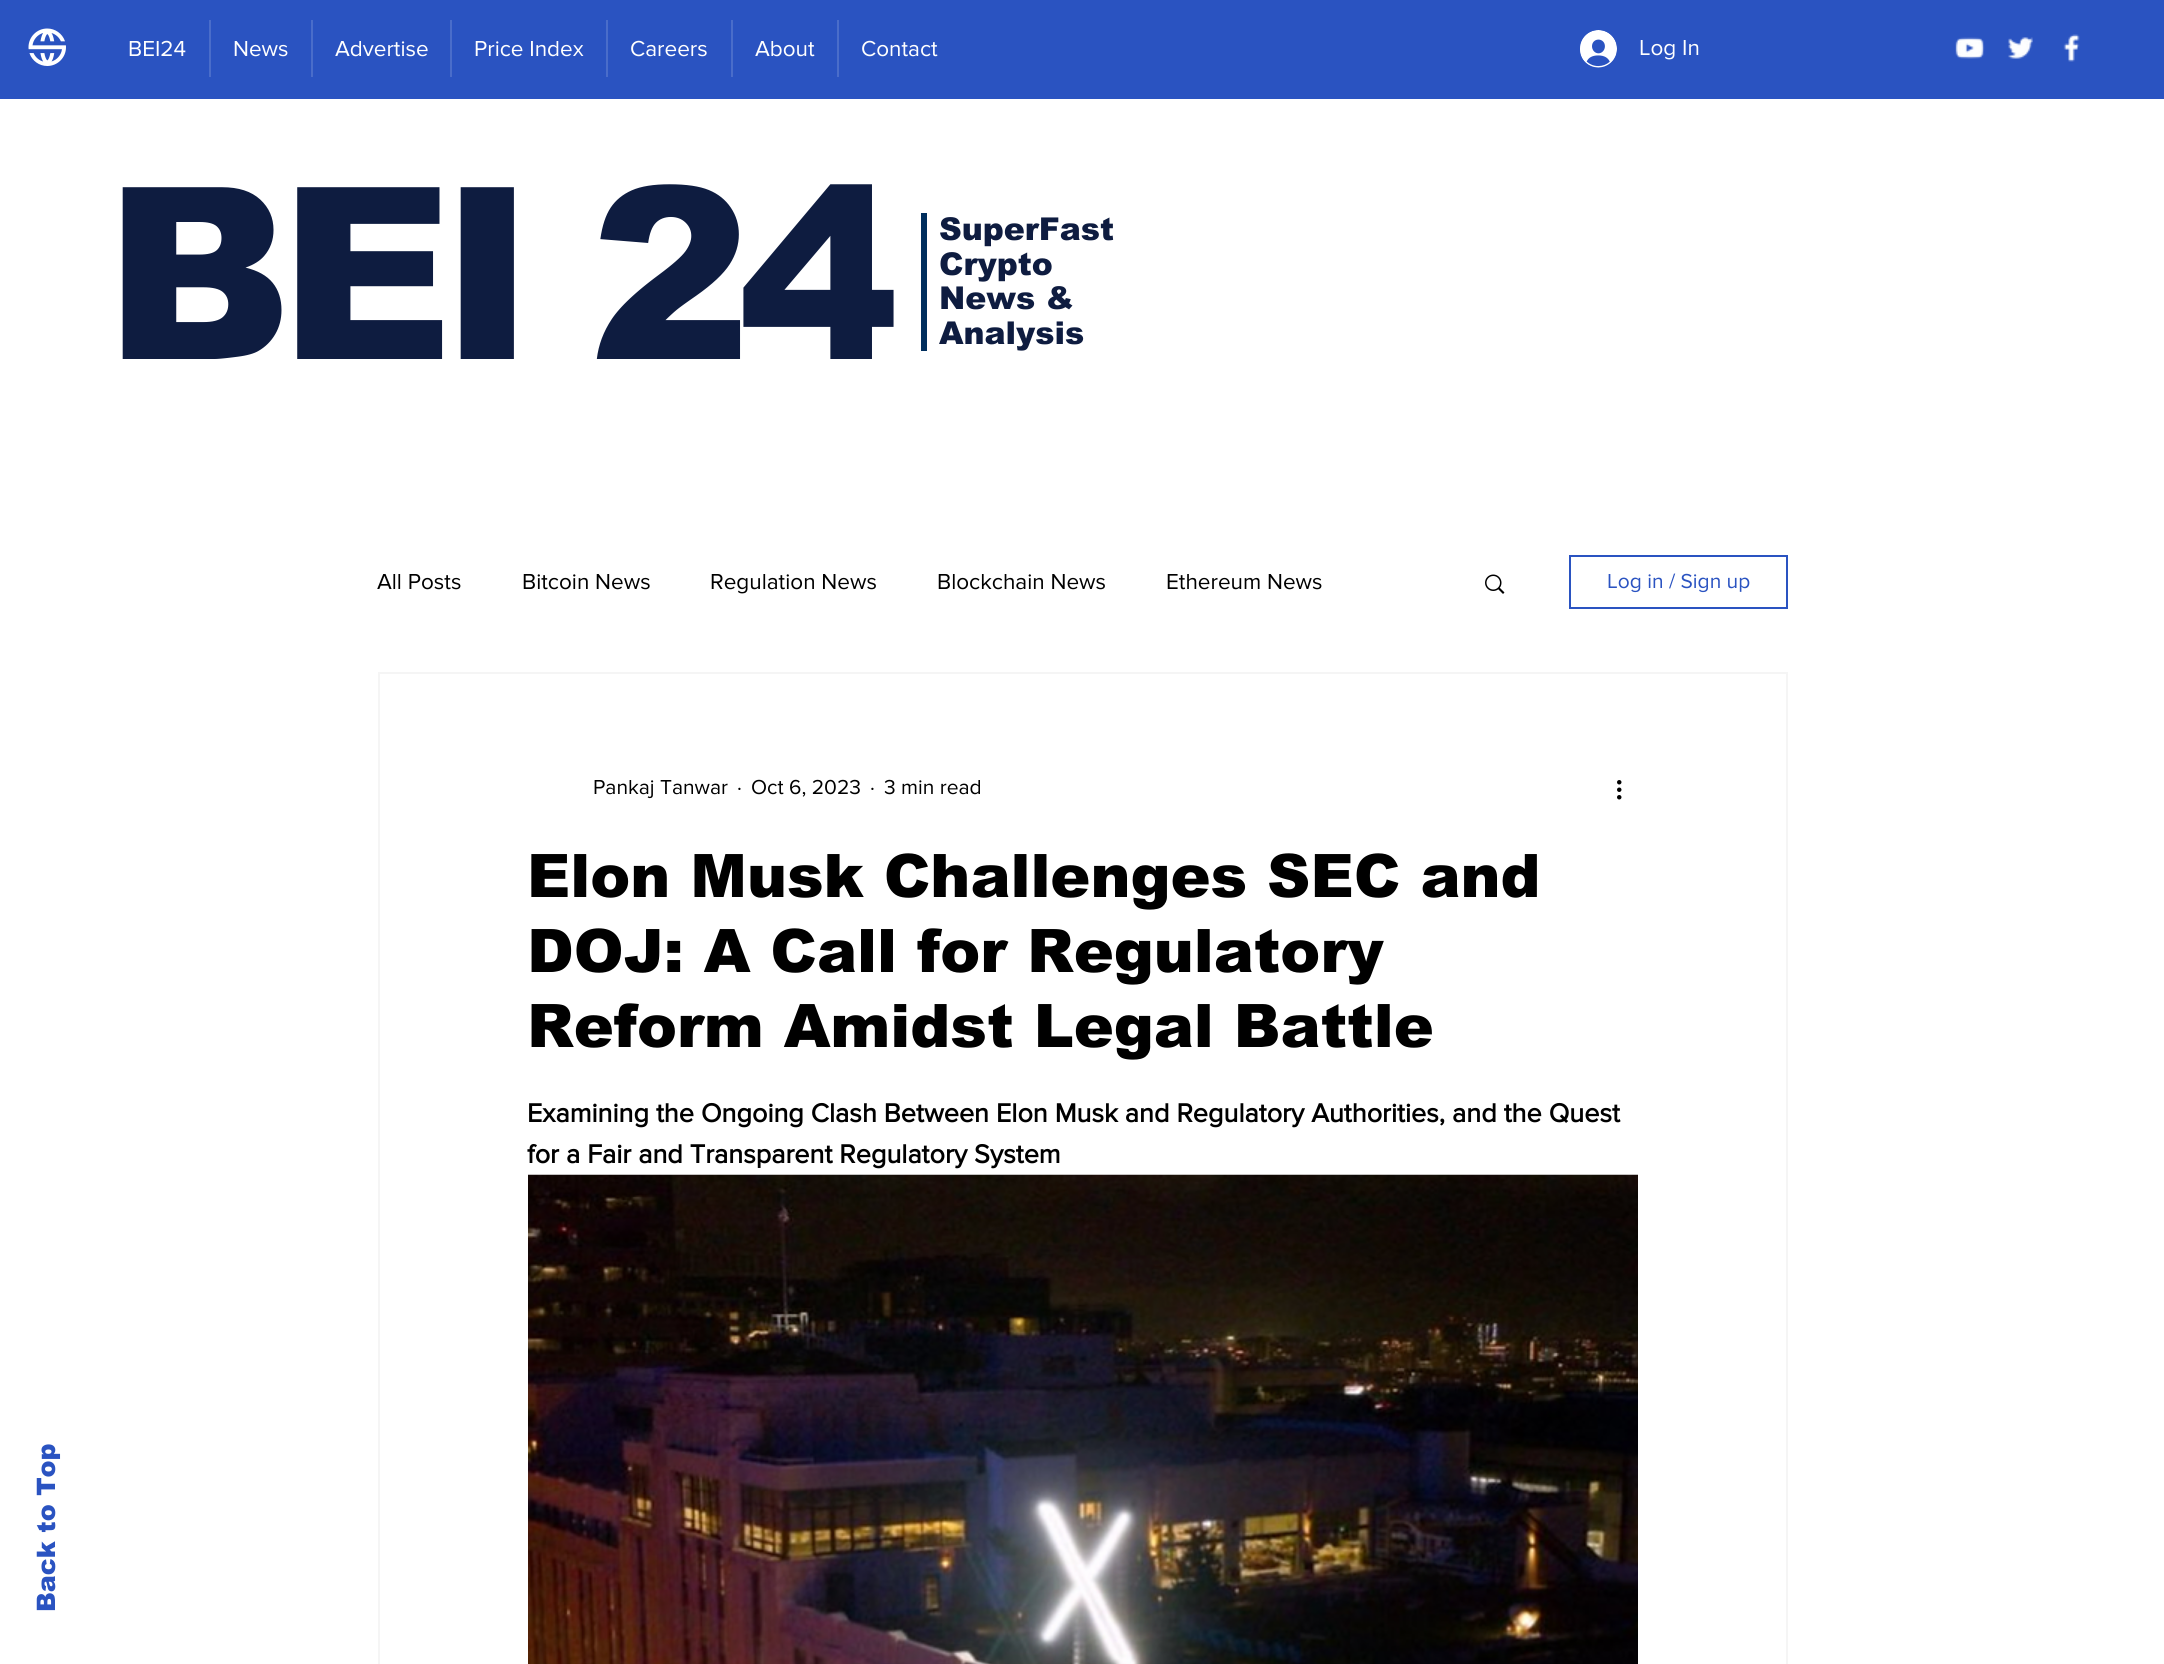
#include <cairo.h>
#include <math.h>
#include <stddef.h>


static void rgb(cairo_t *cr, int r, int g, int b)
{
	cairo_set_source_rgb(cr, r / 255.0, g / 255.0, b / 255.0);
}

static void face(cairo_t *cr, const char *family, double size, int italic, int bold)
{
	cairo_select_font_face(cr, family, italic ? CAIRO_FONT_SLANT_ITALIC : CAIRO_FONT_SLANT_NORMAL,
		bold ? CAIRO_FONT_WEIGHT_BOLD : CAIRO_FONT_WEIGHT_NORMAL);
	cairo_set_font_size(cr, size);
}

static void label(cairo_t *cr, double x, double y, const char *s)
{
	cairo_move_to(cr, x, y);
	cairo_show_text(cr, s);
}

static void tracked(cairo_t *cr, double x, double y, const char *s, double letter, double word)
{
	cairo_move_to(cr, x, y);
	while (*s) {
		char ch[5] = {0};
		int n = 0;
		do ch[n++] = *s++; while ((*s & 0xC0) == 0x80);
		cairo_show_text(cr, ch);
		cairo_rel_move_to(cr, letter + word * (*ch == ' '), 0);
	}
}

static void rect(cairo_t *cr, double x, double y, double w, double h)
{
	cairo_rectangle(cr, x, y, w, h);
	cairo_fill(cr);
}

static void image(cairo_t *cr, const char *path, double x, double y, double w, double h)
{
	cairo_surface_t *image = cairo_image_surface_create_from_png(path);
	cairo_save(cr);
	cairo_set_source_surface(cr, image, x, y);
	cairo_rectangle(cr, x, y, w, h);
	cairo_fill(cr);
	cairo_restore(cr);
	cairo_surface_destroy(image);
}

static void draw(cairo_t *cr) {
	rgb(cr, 255, 255, 255);
	cairo_paint(cr);
	rgb(cr, 42, 83, 193);
	rect(cr, 0, 0, 2164, 99);
	image(cr, "image0.png", 28, 28, 38, 38);
	face(cr, "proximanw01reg", 22.5, 0, 0);
	rgb(cr, 255, 255, 255);
	label(cr, 128, 56, "BEI24");
	rgb(cr, 74, 109, 202);
	rect(cr, 209, 20, 2, 57);
	rgb(cr, 255, 255, 255);
	label(cr, 233, 56, "News");
	rgb(cr, 74, 109, 202);
	rect(cr, 311, 20, 2, 57);
	rgb(cr, 255, 255, 255);
	label(cr, 335, 56, "Advertise");
	rgb(cr, 74, 109, 202);
	rect(cr, 450, 20, 2, 57);
	rgb(cr, 255, 255, 255);
	label(cr, 474, 56, "Price Index");
	rgb(cr, 74, 109, 202);
	rect(cr, 606, 20, 2, 57);
	rgb(cr, 255, 255, 255);
	label(cr, 630, 56, "Careers");
	rgb(cr, 74, 109, 202);
	rect(cr, 731, 20, 2, 57);
	rgb(cr, 255, 255, 255);
	label(cr, 755, 56, "About");
	rgb(cr, 74, 109, 202);
	rect(cr, 837, 20, 2, 57);
	rgb(cr, 255, 255, 255);
	label(cr, 861, 56, "Contact");
	image(cr, "image1.png", 1580, 30, 37, 38);
	label(cr, 1639, 55, "Log In");
	image(cr, "image2.png", 1955, 37, 30, 22);
	image(cr, "image3.png", 2008, 37, 25, 22);
	image(cr, "image4.png", 2063, 34, 17, 28);
	face(cr, "arial Black", 240, 0, 0);
	rgb(cr, 14, 28, 64);
	tracked(cr, 105, 359, "BEI 24", -12, 0);
	rgb(cr, 0, 46, 93);
	rect(cr, 921, 213, 6, 138);
	face(cr, "arial Black", 31.5, 0, 0);
	rgb(cr, 14, 28, 64);
	label(cr, 939, 240, "SuperFast");
	label(cr, 939, 275, "Crypto");
	label(cr, 939, 309, "News &");
	label(cr, 939, 344, "Analysis");
	face(cr, "proximanw01reg", 22.5, 0, 0);
	rgb(cr, 0, 0, 0);
	label(cr, 377, 589, "All Posts");
	label(cr, 522, 589, "Bitcoin News");
	label(cr, 710, 589, "Regulation News");
	label(cr, 937, 589, "Blockchain News");
	label(cr, 1166, 589, "Ethereum News");
	image(cr, "image5.png", 1485, 574, 20, 20);
	cairo_rectangle(cr, 1570, 556, 217, 52);
	rgb(cr, 42, 83, 193);
	cairo_stroke(cr);
	face(cr, "proximanw01reg", 21, 0, 0);
	label(cr, 1607, 588, "Log in / Sign up");
	cairo_rectangle(cr, 379, 673, 1408, 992);
	rgb(cr, 245, 245, 245);
	cairo_stroke(cr);
	rgb(cr, 0, 0, 0);
	label(cr, 593, 794, "Pankaj Tanwar");
	label(cr, 737, 794, "·");
	label(cr, 751, 794, "Oct 6, 2023");
	label(cr, 870, 794, "·");
	label(cr, 884, 794, "3 min read");
	image(cr, "image6.png", 1617, 780, 5, 20);
	face(cr, "arial Black", 60, 0, 0);
	label(cr, 527, 897, "Elon Musk Challenges SEC and");
	label(cr, 527, 972, "DOJ: A Call for Regulatory");
	label(cr, 527, 1047, "Reform Amidst Legal Battle");
	face(cr, "proximanw01reg", 27, 0, 1);
	label(cr, 527, 1122, "Examining the Ongoing Clash Between Elon Musk and Regulatory Authorities, and the Quest");
	label(cr, 527, 1163, "for a Fair and Transparent Regulatory System");
	image(cr, "image7.png", 528, 1174, 1110, 490);
	face(cr, "arial Black", 25.5, 0, 0);
	rgb(cr, 42, 83, 193);
	cairo_save(cr);
	cairo_translate(cr, 55, 1612);
	cairo_rotate(cr, -90 * M_PI / 180);
	label(cr, 0, 0, "Back to Top");
	cairo_restore(cr);
}

int main(void) {
	cairo_surface_t *surface = cairo_image_surface_create(CAIRO_FORMAT_RGB24, 2164, 1664);
	cairo_t *cr = cairo_create(surface);
	cairo_font_options_t *options = cairo_font_options_create();
	cairo_font_options_set_hint_metrics(options, CAIRO_HINT_METRICS_OFF);
	cairo_font_options_set_hint_style(options, CAIRO_HINT_STYLE_NONE);
	cairo_set_font_options(cr, options);
	cairo_set_miter_limit(cr, 4);
	draw(cr);
	cairo_surface_write_to_png(surface, "render.png");
	cairo_font_options_destroy(options);
	cairo_destroy(cr);
	cairo_surface_destroy(surface);
	return 0;
}
